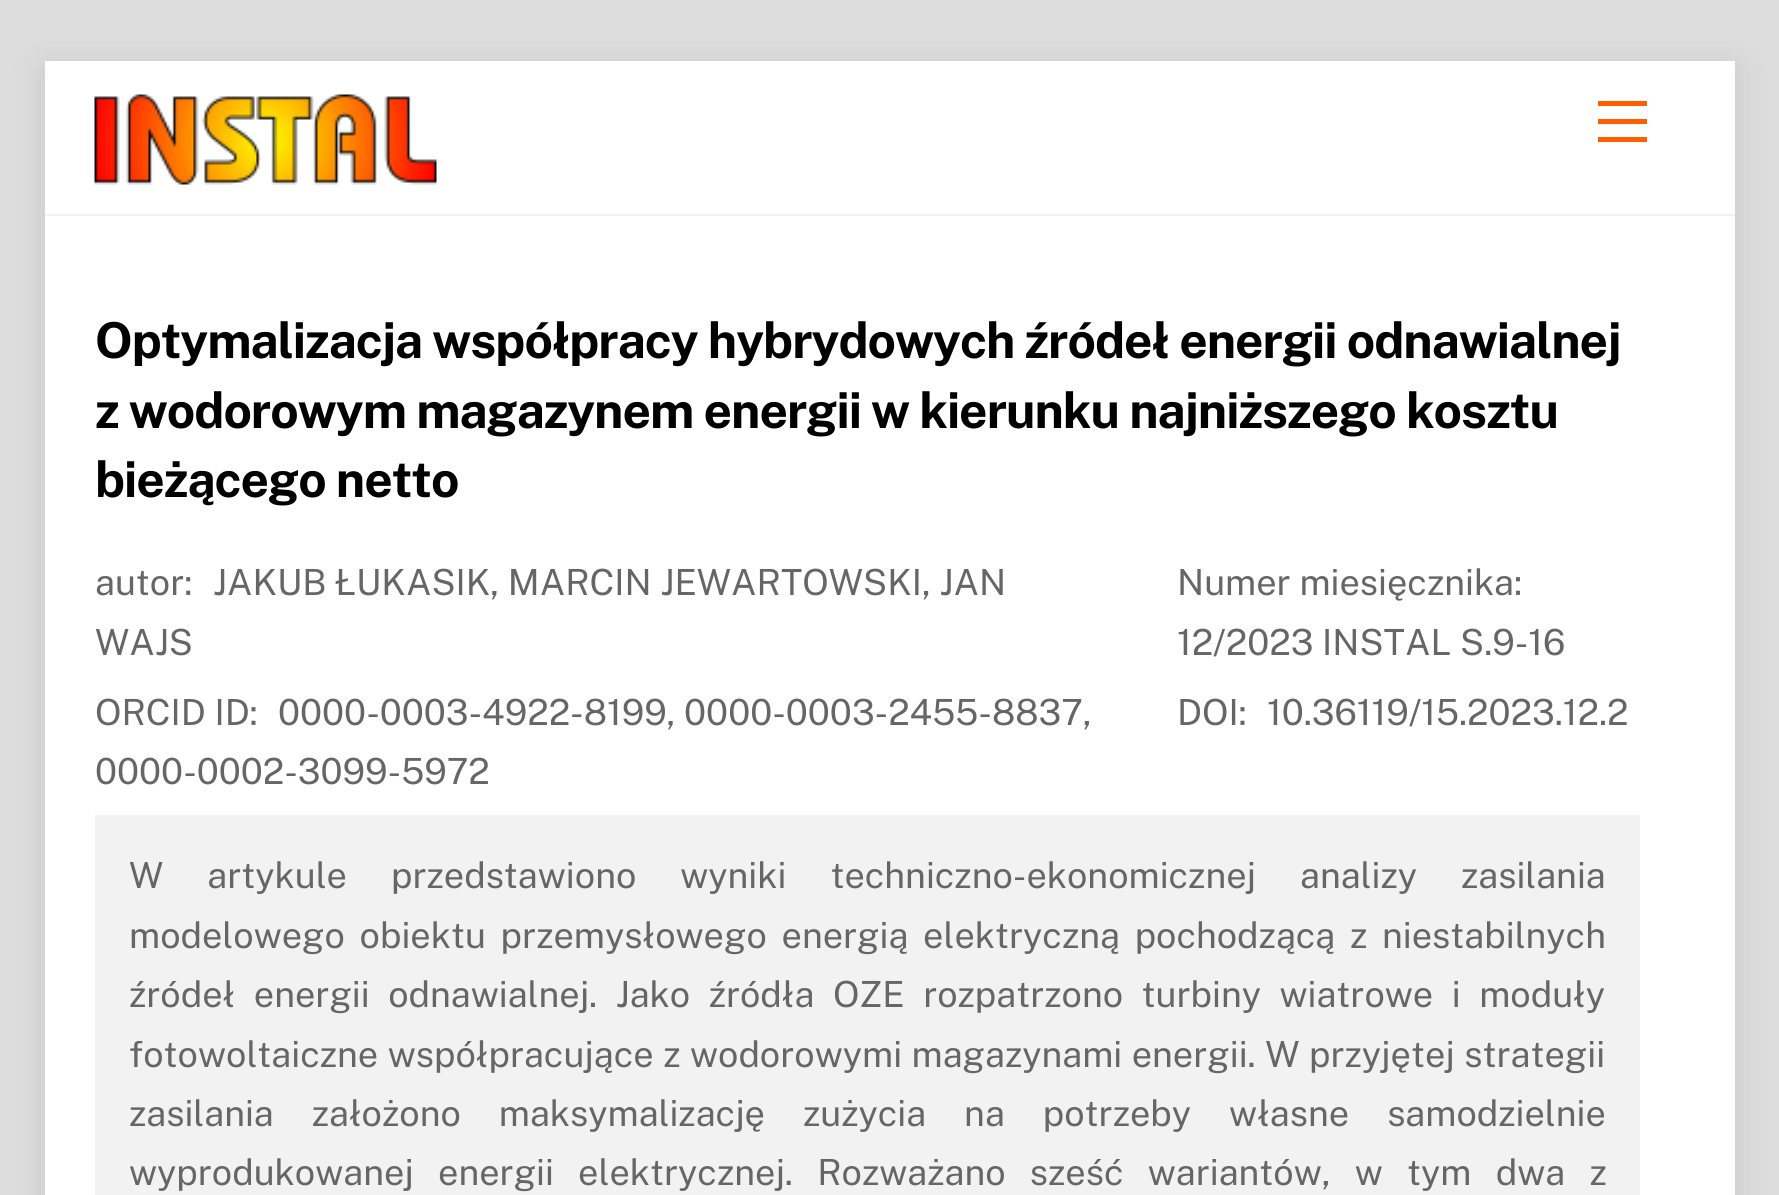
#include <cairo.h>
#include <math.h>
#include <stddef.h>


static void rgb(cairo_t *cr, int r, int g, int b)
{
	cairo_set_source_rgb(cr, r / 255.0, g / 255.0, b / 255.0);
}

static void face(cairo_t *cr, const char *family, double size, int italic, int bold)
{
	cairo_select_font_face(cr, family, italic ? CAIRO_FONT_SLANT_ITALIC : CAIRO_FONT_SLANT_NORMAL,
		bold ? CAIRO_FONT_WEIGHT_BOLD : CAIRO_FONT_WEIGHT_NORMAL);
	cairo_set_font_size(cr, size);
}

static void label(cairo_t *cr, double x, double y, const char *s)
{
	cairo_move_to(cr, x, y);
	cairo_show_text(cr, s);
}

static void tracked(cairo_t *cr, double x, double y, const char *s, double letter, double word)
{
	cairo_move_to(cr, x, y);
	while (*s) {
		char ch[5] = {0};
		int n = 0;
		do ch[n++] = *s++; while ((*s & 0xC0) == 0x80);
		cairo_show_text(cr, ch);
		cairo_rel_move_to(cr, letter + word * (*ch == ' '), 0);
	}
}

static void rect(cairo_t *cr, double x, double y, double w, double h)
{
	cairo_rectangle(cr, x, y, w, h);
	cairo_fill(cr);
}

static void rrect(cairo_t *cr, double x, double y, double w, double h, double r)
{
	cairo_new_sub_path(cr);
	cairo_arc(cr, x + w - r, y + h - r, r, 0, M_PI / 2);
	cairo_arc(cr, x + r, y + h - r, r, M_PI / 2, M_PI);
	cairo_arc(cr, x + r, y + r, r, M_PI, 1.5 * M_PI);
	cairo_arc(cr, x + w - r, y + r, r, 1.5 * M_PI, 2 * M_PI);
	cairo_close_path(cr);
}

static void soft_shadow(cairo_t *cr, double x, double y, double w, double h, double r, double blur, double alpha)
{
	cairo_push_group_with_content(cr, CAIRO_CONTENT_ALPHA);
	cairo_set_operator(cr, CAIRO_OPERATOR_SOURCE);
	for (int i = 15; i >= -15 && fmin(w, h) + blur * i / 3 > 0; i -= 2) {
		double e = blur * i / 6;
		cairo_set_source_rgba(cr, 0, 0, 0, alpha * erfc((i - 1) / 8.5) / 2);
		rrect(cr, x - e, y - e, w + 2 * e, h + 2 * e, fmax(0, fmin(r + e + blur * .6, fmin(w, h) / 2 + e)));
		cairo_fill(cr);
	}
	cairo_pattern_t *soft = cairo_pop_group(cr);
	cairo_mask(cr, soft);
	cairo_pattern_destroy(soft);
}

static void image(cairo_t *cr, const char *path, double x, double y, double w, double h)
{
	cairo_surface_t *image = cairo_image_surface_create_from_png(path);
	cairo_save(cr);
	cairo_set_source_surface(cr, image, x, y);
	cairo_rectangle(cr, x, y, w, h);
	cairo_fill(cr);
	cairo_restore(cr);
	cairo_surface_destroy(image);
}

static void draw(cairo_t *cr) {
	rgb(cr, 221, 221, 221);
	cairo_paint(cr);
	rgb(cr, 0, 0, 0);
	soft_shadow(cr, 45, 68, 1690, 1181, 0, 18, 0.1);
	rgb(cr, 255, 255, 255);
	rect(cr, 45, 61, 1690, 1134);
	rgb(cr, 242, 242, 242);
	rect(cr, 45, 214, 1690, 2);
	image(cr, "image0.png", 94, 94, 343, 91);
	rgb(cr, 255, 94, 0);
	rect(cr, 1598, 137, 49, 5);
	rect(cr, 1598, 101, 49, 5);
	rect(cr, 1598, 119, 49, 5);
	face(cr, "Public Sans", 49.5, 0, 1);
	rgb(cr, 0, 0, 0);
	tracked(cr, 95, 358, "Optymalizacja współpracy hybrydowych źródeł energii odnawialnej", -1, 0);
	tracked(cr, 95, 428, "z wodorowym magazynem energii w kierunku najniższego kosztu", -1, 0);
	tracked(cr, 95, 497, "bieżącego netto", -1, 0);
	face(cr, "Public Sans", 36, 0, 0);
	rgb(cr, 102, 102, 102);
	label(cr, 95, 595, "autor:");
	label(cr, 213, 595, "JAKUB ŁUKASIK, MARCIN JEWARTOWSKI, JAN");
	label(cr, 95, 655, "WAJS");
	label(cr, 95, 725, "ORCID ID:");
	label(cr, 278, 725, "0000-0003-4922-8199, 0000-0003-2455-8837,");
	label(cr, 95, 784, "0000-0002-3099-5972");
	label(cr, 1177, 595, "Numer miesięcznika:");
	label(cr, 1177, 655, "12/2023 INSTAL S.9-16");
	label(cr, 1177, 725, "DOI:");
	label(cr, 1267, 725, "10.36119/15.2023.12.2");
	rgb(cr, 242, 242, 242);
	rect(cr, 95, 815, 1545, 380);
	rgb(cr, 102, 102, 102);
	tracked(cr, 129, 888, "W artykule przedstawiono wyniki techniczno-ekonomicznej analizy zasilania", 0, 35.25);
	tracked(cr, 129, 948, "modelowego obiektu przemysłowego energią elektryczną pochodzącą z niestabilnych", 0, 6);
	tracked(cr, 129, 1007, "źródeł energii odnawialnej. Jako źródła OZE rozpatrzono turbiny wiatrowe i moduły", 0, 9.75);
	tracked(cr, 129, 1067, "fotowoltaiczne współpracujące z wodorowymi magazynami energii. W przyjętej strategii", 0, 0.75);
	tracked(cr, 129, 1126, "zasilania założono maksymalizację zużycia na potrzeby własne samodzielnie", 0, 29.25);
	tracked(cr, 129, 1185, "wyprodukowanej energii elektrycznej. Rozważano sześć wariantów, w tym dwa z", 0, 15.5);
}

int main(void) {
	cairo_surface_t *surface = cairo_image_surface_create(CAIRO_FORMAT_RGB24, 1779, 1195);
	cairo_t *cr = cairo_create(surface);
	cairo_font_options_t *options = cairo_font_options_create();
	cairo_font_options_set_hint_metrics(options, CAIRO_HINT_METRICS_OFF);
	cairo_font_options_set_hint_style(options, CAIRO_HINT_STYLE_NONE);
	cairo_set_font_options(cr, options);
	cairo_set_miter_limit(cr, 4);
	draw(cr);
	cairo_surface_write_to_png(surface, "render.png");
	cairo_font_options_destroy(options);
	cairo_destroy(cr);
	cairo_surface_destroy(surface);
	return 0;
}
